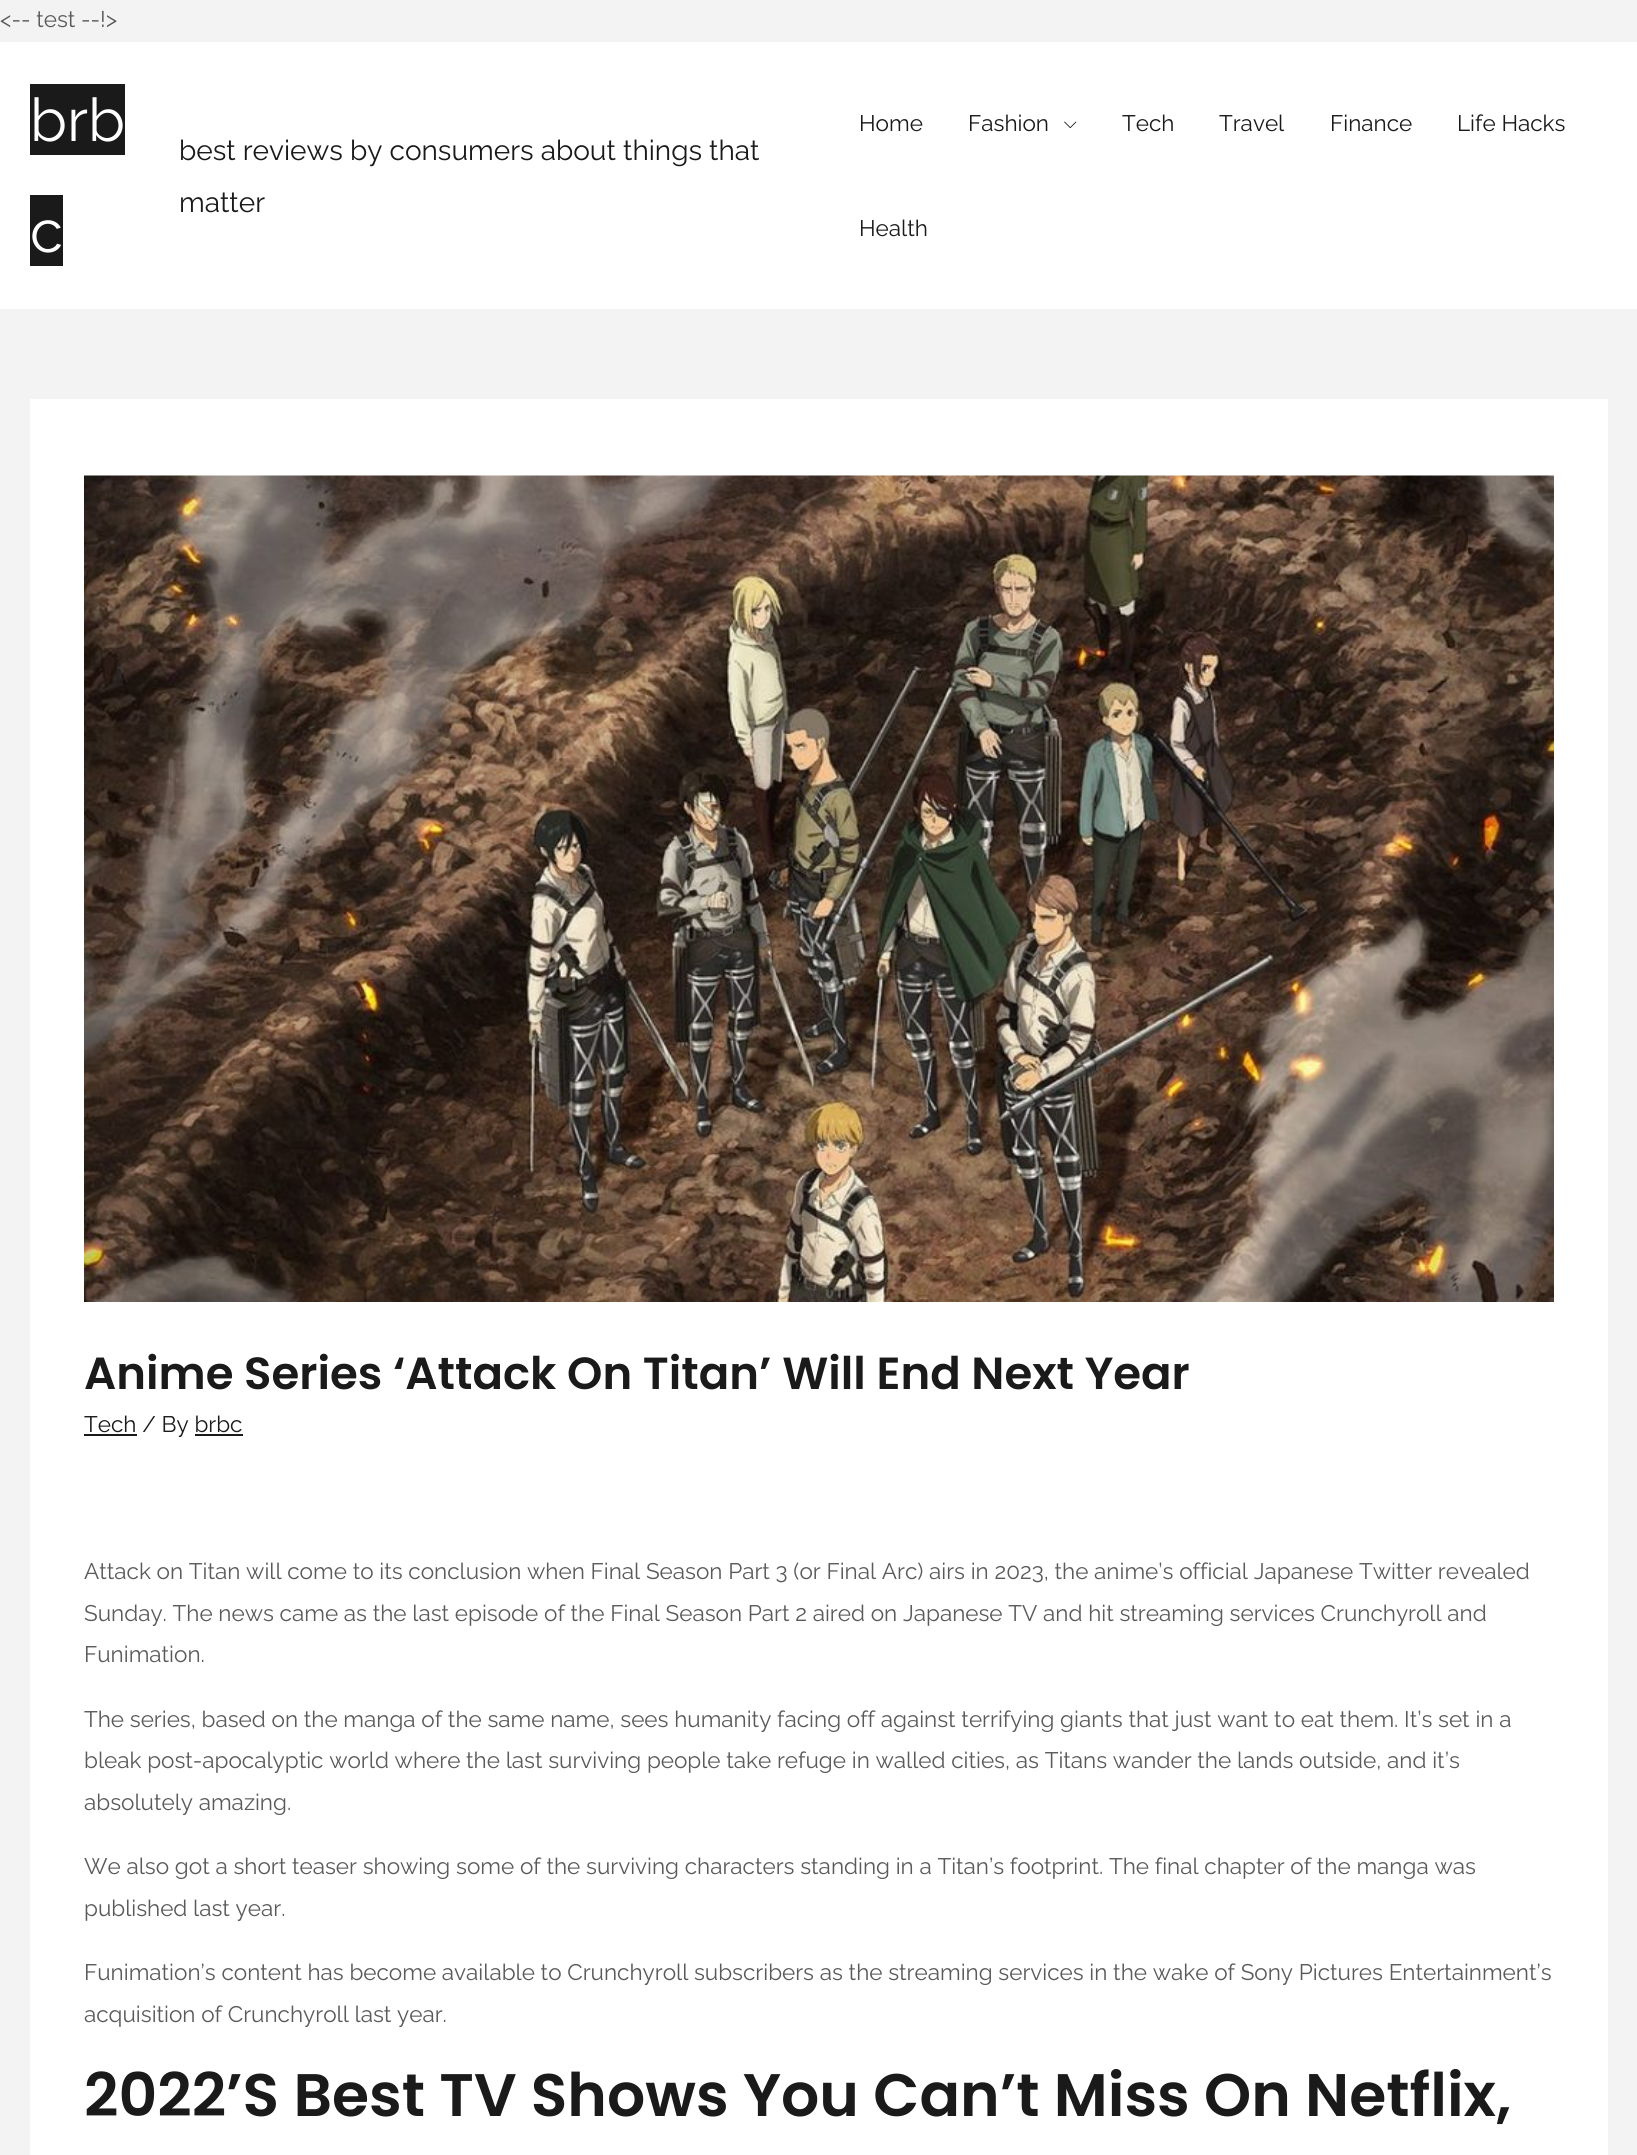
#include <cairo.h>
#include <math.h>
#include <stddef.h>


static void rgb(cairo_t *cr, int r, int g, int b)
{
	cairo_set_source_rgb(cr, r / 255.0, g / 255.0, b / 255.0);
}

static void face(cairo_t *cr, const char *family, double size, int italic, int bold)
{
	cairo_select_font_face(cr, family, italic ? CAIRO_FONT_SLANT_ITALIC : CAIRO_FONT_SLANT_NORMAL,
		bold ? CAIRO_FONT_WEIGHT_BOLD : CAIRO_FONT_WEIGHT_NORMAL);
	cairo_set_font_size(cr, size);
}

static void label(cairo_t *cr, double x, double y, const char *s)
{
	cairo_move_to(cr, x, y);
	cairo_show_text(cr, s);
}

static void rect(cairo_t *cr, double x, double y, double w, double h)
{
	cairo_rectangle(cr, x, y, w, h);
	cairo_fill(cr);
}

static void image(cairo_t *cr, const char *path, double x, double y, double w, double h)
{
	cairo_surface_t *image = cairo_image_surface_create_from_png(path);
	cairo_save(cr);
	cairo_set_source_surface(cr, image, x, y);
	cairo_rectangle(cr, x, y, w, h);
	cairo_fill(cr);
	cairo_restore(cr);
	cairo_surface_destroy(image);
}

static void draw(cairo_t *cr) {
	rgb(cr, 243, 243, 243);
	cairo_paint(cr);
	face(cr, "Raleway Thin", 22.5, 0, 0);
	rgb(cr, 90, 90, 90);
	label(cr, 0, 27, "<-- test --!>");
	rgb(cr, 255, 255, 255);
	rect(cr, 0, 42, 1637, 267);
	rgb(cr, 26, 26, 26);
	rect(cr, 30, 84, 95, 71);
	face(cr, "Raleway Thin", 60, 0, 0);
	rgb(cr, 255, 255, 255);
	label(cr, 30, 141, "brb");
	rgb(cr, 26, 26, 26);
	rect(cr, 30, 195, 33, 71);
	rgb(cr, 255, 255, 255);
	label(cr, 30, 252, "c");
	face(cr, "Raleway Thin", 28, 0, 0);
	rgb(cr, 26, 26, 26);
	label(cr, 179, 160, "best reviews by consumers about things that");
	label(cr, 179, 212, "matter");
	face(cr, "Raleway Thin", 22.5, 0, 0);
	label(cr, 859, 131, "Home");
	label(cr, 968, 131, "Fashion");
	image(cr, "image0.png", 1064, 121, 13, 8);
	label(cr, 1122, 131, "Tech");
	label(cr, 1219, 131, "Travel");
	label(cr, 1330, 131, "Finance");
	label(cr, 1457, 131, "Life Hacks");
	label(cr, 859, 236, "Health");
	rgb(cr, 255, 255, 255);
	rect(cr, 30, 399, 1578, 1756);
	image(cr, "image1.png", 84, 475, 1470, 827);
	face(cr, "Poppins SemiBold", 45, 0, 0);
	rgb(cr, 26, 26, 26);
	label(cr, 84, 1389, "Anime Series ‘Attack On Titan’ Will End Next Year");
	rect(cr, 84, 1434, 53, 2);
	face(cr, "Raleway Thin", 22.5, 0, 0);
	label(cr, 84, 1432, "Tech / By brbc");
	rect(cr, 195, 1434, 48, 2);
	rgb(cr, 90, 90, 90);
	label(cr, 84, 1579, "Attack on Titan will come to its conclusion when Final Season Part 3 (or Final Arc) airs in 2023, the anime’s official Japanese Twitter revealed");
	label(cr, 84, 1621, "Sunday. The news came as the last episode of the Final Season Part 2 aired on Japanese TV and hit streaming services Crunchyroll and");
	label(cr, 84, 1662, "Funimation.");
	label(cr, 84, 1727, "The series, based on the manga of the same name, sees humanity facing off against terrifying giants that just want to eat them. It’s set in a");
	label(cr, 84, 1768, "bleak post-apocalyptic world where the last surviving people take refuge in walled cities, as Titans wander the lands outside, and it’s");
	label(cr, 84, 1810, "absolutely amazing.");
	label(cr, 84, 1874, "We also got a short teaser showing some of the surviving characters standing in a Titan’s footprint. The final chapter of the manga was");
	label(cr, 84, 1916, "published last year.");
	label(cr, 84, 1980, "Funimation’s content has become available to Crunchyroll subscribers as the streaming services in the wake of Sony Pictures Entertainment’s");
	label(cr, 84, 2022, "acquisition of Crunchyroll last year.");
	face(cr, "Poppins SemiBold", 60, 0, 0);
	rgb(cr, 26, 26, 26);
	label(cr, 84, 2116, "2022’S Best TV Shows You Can’t Miss On Netflix,");
}

int main(void) {
	cairo_surface_t *surface = cairo_image_surface_create(CAIRO_FORMAT_RGB24, 1637, 2155);
	cairo_t *cr = cairo_create(surface);
	cairo_font_options_t *options = cairo_font_options_create();
	cairo_font_options_set_hint_metrics(options, CAIRO_HINT_METRICS_OFF);
	cairo_font_options_set_hint_style(options, CAIRO_HINT_STYLE_NONE);
	cairo_set_font_options(cr, options);
	cairo_set_miter_limit(cr, 4);
	draw(cr);
	cairo_surface_write_to_png(surface, "render.png");
	cairo_font_options_destroy(options);
	cairo_destroy(cr);
	cairo_surface_destroy(surface);
	return 0;
}
